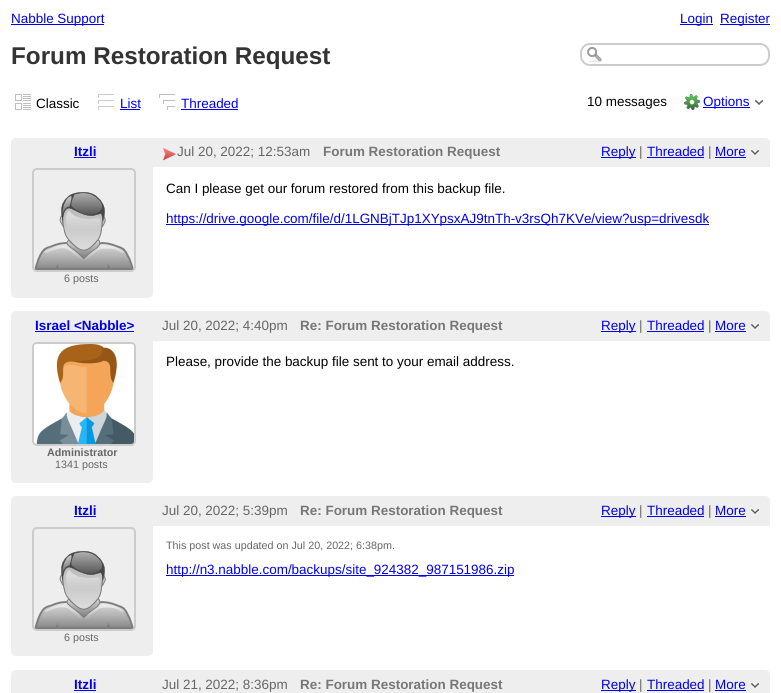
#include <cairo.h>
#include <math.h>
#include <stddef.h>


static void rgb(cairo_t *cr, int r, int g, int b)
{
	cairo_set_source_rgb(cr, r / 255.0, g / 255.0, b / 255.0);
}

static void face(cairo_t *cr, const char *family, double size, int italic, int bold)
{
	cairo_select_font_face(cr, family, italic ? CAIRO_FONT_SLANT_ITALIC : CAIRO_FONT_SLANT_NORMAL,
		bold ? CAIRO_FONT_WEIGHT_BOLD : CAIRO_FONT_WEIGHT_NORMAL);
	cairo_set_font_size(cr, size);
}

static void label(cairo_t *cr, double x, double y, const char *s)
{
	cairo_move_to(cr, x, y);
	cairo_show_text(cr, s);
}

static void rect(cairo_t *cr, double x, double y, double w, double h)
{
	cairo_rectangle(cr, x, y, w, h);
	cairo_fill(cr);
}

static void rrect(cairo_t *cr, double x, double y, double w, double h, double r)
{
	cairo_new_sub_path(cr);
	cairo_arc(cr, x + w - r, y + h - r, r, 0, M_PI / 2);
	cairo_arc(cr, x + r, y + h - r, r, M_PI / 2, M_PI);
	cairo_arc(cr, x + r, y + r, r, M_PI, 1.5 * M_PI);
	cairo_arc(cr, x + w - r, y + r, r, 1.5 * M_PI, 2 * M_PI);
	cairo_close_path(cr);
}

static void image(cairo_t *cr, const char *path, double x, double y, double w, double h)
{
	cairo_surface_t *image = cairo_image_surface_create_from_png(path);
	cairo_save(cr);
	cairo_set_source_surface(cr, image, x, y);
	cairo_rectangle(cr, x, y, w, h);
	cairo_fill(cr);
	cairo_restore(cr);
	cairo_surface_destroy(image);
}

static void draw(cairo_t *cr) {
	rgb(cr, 255, 255, 255);
	cairo_paint(cr);
	rgb(cr, 0, 0, 238);
	rect(cr, 11, 24, 93, 1);
	face(cr, "Liberation Sans", 13.45, 0, 0);
	label(cr, 11, 23, "Nabble Support");
	rect(cr, 680, 24, 33, 1);
	label(cr, 680, 23, "Login");
	rect(cr, 720, 24, 50, 1);
	label(cr, 720, 23, "Register");
	face(cr, "Liberation Sans", 24.25, 0, 1);
	rgb(cr, 51, 51, 51);
	label(cr, 11, 64, "Forum Restoration Request");
	image(cr, "image0.png", 587, 47, 15, 16);
	rrect(cr, 581, 44, 188, 21, 9);
	rgb(cr, 204, 204, 204);
	cairo_stroke(cr);
	image(cr, "image1.png", 15, 94, 16, 16);
	face(cr, "Liberation Sans", 13.45, 0, 0);
	rgb(cr, 0, 0, 0);
	label(cr, 36, 108, "Classic");
	image(cr, "image2.png", 98, 94, 16, 16);
	rgb(cr, 0, 0, 238);
	label(cr, 120, 108, "List");
	rect(cr, 120, 109, 20, 1);
	image(cr, "image3.png", 159, 94, 16, 16);
	label(cr, 181, 108, "Threaded");
	rect(cr, 181, 109, 57, 1);
	rgb(cr, 0, 0, 0);
	label(cr, 587, 106, "10 messages");
	image(cr, "image4.png", 684, 94, 16, 16);
	rgb(cr, 0, 0, 238);
	rect(cr, 703, 107, 47, 1);
	label(cr, 703, 106, "Options");
	image(cr, "image5.png", 755, 100, 8, 5);
	rgb(cr, 238, 238, 238);
	cairo_new_path(cr);
	cairo_move_to(cr, 16, 138);
	cairo_line_to(cr, 765, 138);
	cairo_curve_to(cr, 768, 138, 770, 140, 770, 143);
	cairo_line_to(cr, 770, 167);
	cairo_line_to(cr, 11, 167);
	cairo_line_to(cr, 11, 143);
	cairo_curve_to(cr, 11, 140, 13, 138, 16, 138);
	cairo_close_path(cr);
	cairo_fill(cr);
	face(cr, "Liberation Sans", 13.45, 0, 1);
	rgb(cr, 0, 0, 238);
	label(cr, 74, 156, "Itzli");
	rect(cr, 74, 157, 22, 1);
	image(cr, "image6.png", 163, 148, 14, 13);
	face(cr, "Liberation Sans", 13.45, 0, 0);
	rgb(cr, 102, 102, 102);
	label(cr, 177, 156, "Jul 20, 2022; 12:53am");
	face(cr, "Liberation Sans", 13.45, 0, 1);
	rgb(cr, 119, 119, 119);
	label(cr, 323, 156, "Forum Restoration Request");
	rgb(cr, 0, 0, 238);
	rect(cr, 601, 157, 35, 1);
	face(cr, "Liberation Sans", 13.45, 0, 0);
	label(cr, 601, 156, "Reply");
	rgb(cr, 102, 102, 102);
	label(cr, 639, 156, "|");
	rgb(cr, 0, 0, 238);
	label(cr, 647, 156, "Threaded");
	rect(cr, 647, 157, 57, 1);
	rgb(cr, 102, 102, 102);
	label(cr, 708, 156, "|");
	rgb(cr, 0, 0, 238);
	label(cr, 715, 156, "More");
	rect(cr, 715, 157, 31, 1);
	image(cr, "image7.png", 750, 149, 10, 7);
	rgb(cr, 0, 0, 0);
	label(cr, 166, 193, "Can I please get our forum restored from this backup file.");
	rgb(cr, 0, 0, 238);
	rect(cr, 166, 224, 543, 1);
	label(cr, 166, 223, "https://drive.google.com/file/d/1LGNBjTJp1XYpsxAJ9tnTh-v3rsQh7KVe/view?usp=drivesdk");
	rgb(cr, 238, 238, 238);
	cairo_new_path(cr);
	cairo_move_to(cr, 11, 167);
	cairo_line_to(cr, 153, 167);
	cairo_line_to(cr, 153, 293);
	cairo_curve_to(cr, 153, 296, 151, 298, 148, 298);
	cairo_line_to(cr, 16, 298);
	cairo_curve_to(cr, 13, 298, 11, 296, 11, 293);
	cairo_close_path(cr);
	cairo_fill(cr);
	rrect(cr, 33, 169, 102, 102, 4);
	rgb(cr, 204, 204, 204);
	cairo_stroke(cr);
	image(cr, "image8.png", 34, 192, 100, 78);
	face(cr, "Liberation Sans", 10.75, 0, 0);
	rgb(cr, 102, 102, 102);
	label(cr, 64, 282, "6 posts");
	rgb(cr, 238, 238, 238);
	cairo_new_path(cr);
	cairo_move_to(cr, 16, 311);
	cairo_line_to(cr, 765, 311);
	cairo_curve_to(cr, 768, 311, 770, 313, 770, 316);
	cairo_line_to(cr, 770, 341);
	cairo_line_to(cr, 11, 341);
	cairo_line_to(cr, 11, 316);
	cairo_curve_to(cr, 11, 313, 13, 311, 16, 311);
	cairo_close_path(cr);
	cairo_fill(cr);
	face(cr, "Liberation Sans", 13.45, 0, 1);
	rgb(cr, 0, 0, 238);
	label(cr, 35, 330, "Israel <Nabble>");
	rect(cr, 35, 331, 99, 1);
	face(cr, "Liberation Sans", 13.45, 0, 0);
	rgb(cr, 102, 102, 102);
	label(cr, 162, 330, "Jul 20, 2022; 4:40pm");
	face(cr, "Liberation Sans", 13.45, 0, 1);
	rgb(cr, 119, 119, 119);
	label(cr, 300, 330, "Re: Forum Restoration Request");
	rgb(cr, 0, 0, 238);
	rect(cr, 601, 331, 35, 1);
	face(cr, "Liberation Sans", 13.45, 0, 0);
	label(cr, 601, 330, "Reply");
	rgb(cr, 102, 102, 102);
	label(cr, 639, 330, "|");
	rgb(cr, 0, 0, 238);
	label(cr, 647, 330, "Threaded");
	rect(cr, 647, 331, 57, 1);
	rgb(cr, 102, 102, 102);
	label(cr, 708, 330, "|");
	rgb(cr, 0, 0, 238);
	label(cr, 715, 330, "More");
	rect(cr, 715, 331, 31, 1);
	image(cr, "image7.png", 750, 323, 10, 7);
	rgb(cr, 0, 0, 0);
	label(cr, 166, 366, "Please, provide the backup file sent to your email address.");
	rgb(cr, 238, 238, 238);
	cairo_new_path(cr);
	cairo_move_to(cr, 11, 341);
	cairo_line_to(cr, 153, 341);
	cairo_line_to(cr, 153, 478);
	cairo_curve_to(cr, 153, 481, 151, 483, 148, 483);
	cairo_line_to(cr, 16, 483);
	cairo_curve_to(cr, 13, 483, 11, 481, 11, 478);
	cairo_close_path(cr);
	cairo_fill(cr);
	rrect(cr, 33, 343, 102, 102, 4);
	rgb(cr, 204, 204, 204);
	cairo_stroke(cr);
	image(cr, "image9.png", 34, 344, 100, 100);
	face(cr, "Liberation Sans", 10.75, 0, 1);
	rgb(cr, 102, 102, 102);
	label(cr, 47, 456, "Administrator");
	face(cr, "Liberation Sans", 10.75, 0, 0);
	label(cr, 55, 468, "1341 posts");
	rgb(cr, 238, 238, 238);
	cairo_new_path(cr);
	cairo_move_to(cr, 16, 496);
	cairo_line_to(cr, 765, 496);
	cairo_curve_to(cr, 768, 496, 770, 498, 770, 501);
	cairo_line_to(cr, 770, 526);
	cairo_line_to(cr, 11, 526);
	cairo_line_to(cr, 11, 501);
	cairo_curve_to(cr, 11, 498, 13, 496, 16, 496);
	cairo_close_path(cr);
	cairo_fill(cr);
	face(cr, "Liberation Sans", 13.45, 0, 1);
	rgb(cr, 0, 0, 238);
	label(cr, 74, 515, "Itzli");
	rect(cr, 74, 516, 22, 1);
	face(cr, "Liberation Sans", 13.45, 0, 0);
	rgb(cr, 102, 102, 102);
	label(cr, 162, 515, "Jul 20, 2022; 5:39pm");
	face(cr, "Liberation Sans", 13.45, 0, 1);
	rgb(cr, 119, 119, 119);
	label(cr, 300, 515, "Re: Forum Restoration Request");
	rgb(cr, 0, 0, 238);
	rect(cr, 601, 516, 35, 1);
	face(cr, "Liberation Sans", 13.45, 0, 0);
	label(cr, 601, 515, "Reply");
	rgb(cr, 102, 102, 102);
	label(cr, 639, 515, "|");
	rgb(cr, 0, 0, 238);
	label(cr, 647, 515, "Threaded");
	rect(cr, 647, 516, 57, 1);
	rgb(cr, 102, 102, 102);
	label(cr, 708, 515, "|");
	rgb(cr, 0, 0, 238);
	label(cr, 715, 515, "More");
	rect(cr, 715, 516, 31, 1);
	image(cr, "image7.png", 750, 508, 10, 7);
	face(cr, "Liberation Sans", 10.75, 0, 0);
	rgb(cr, 102, 102, 102);
	label(cr, 166, 549, "This post was updated on Jul 20, 2022; 6:38pm.");
	rgb(cr, 0, 0, 238);
	rect(cr, 166, 575, 348, 1);
	face(cr, "Liberation Sans", 13.45, 0, 0);
	label(cr, 166, 574, "http://n3.nabble.com/backups/site_924382_987151986.zip");
	rgb(cr, 238, 238, 238);
	cairo_new_path(cr);
	cairo_move_to(cr, 11, 526);
	cairo_line_to(cr, 153, 526);
	cairo_line_to(cr, 153, 651);
	cairo_curve_to(cr, 153, 654, 151, 656, 148, 656);
	cairo_line_to(cr, 16, 656);
	cairo_curve_to(cr, 13, 656, 11, 654, 11, 651);
	cairo_close_path(cr);
	cairo_fill(cr);
	rrect(cr, 33, 528, 102, 102, 4);
	rgb(cr, 204, 204, 204);
	cairo_stroke(cr);
	image(cr, "image8.png", 34, 551, 100, 78);
	face(cr, "Liberation Sans", 10.75, 0, 0);
	rgb(cr, 102, 102, 102);
	label(cr, 64, 641, "6 posts");
	rgb(cr, 238, 238, 238);
	cairo_new_path(cr);
	cairo_move_to(cr, 16, 670);
	cairo_line_to(cr, 765, 670);
	cairo_curve_to(cr, 768, 670, 770, 672, 770, 675);
	cairo_line_to(cr, 770, 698);
	cairo_line_to(cr, 11, 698);
	cairo_line_to(cr, 11, 675);
	cairo_curve_to(cr, 11, 672, 13, 670, 16, 670);
	cairo_close_path(cr);
	cairo_fill(cr);
	face(cr, "Liberation Sans", 13.45, 0, 1);
	rgb(cr, 0, 0, 238);
	label(cr, 74, 689, "Itzli");
	rect(cr, 74, 690, 22, 1);
	face(cr, "Liberation Sans", 13.45, 0, 0);
	rgb(cr, 102, 102, 102);
	label(cr, 162, 689, "Jul 21, 2022; 8:36pm");
	face(cr, "Liberation Sans", 13.45, 0, 1);
	rgb(cr, 119, 119, 119);
	label(cr, 300, 689, "Re: Forum Restoration Request");
	rgb(cr, 0, 0, 238);
	rect(cr, 601, 690, 35, 1);
	face(cr, "Liberation Sans", 13.45, 0, 0);
	label(cr, 601, 689, "Reply");
	rgb(cr, 102, 102, 102);
	label(cr, 639, 689, "|");
	rgb(cr, 0, 0, 238);
	label(cr, 647, 689, "Threaded");
	rect(cr, 647, 690, 57, 1);
	rgb(cr, 102, 102, 102);
	label(cr, 708, 689, "|");
	rgb(cr, 0, 0, 238);
	label(cr, 715, 689, "More");
	rect(cr, 715, 690, 31, 1);
	image(cr, "image7.png", 750, 682, 10, 7);
}

int main(void) {
	cairo_surface_t *surface = cairo_image_surface_create(CAIRO_FORMAT_RGB24, 781, 693);
	cairo_t *cr = cairo_create(surface);
	cairo_font_options_t *options = cairo_font_options_create();
	cairo_font_options_set_hint_metrics(options, CAIRO_HINT_METRICS_OFF);
	cairo_font_options_set_hint_style(options, CAIRO_HINT_STYLE_NONE);
	cairo_set_font_options(cr, options);
	cairo_set_miter_limit(cr, 4);
	draw(cr);
	cairo_surface_write_to_png(surface, "render.png");
	cairo_font_options_destroy(options);
	cairo_destroy(cr);
	cairo_surface_destroy(surface);
	return 0;
}
